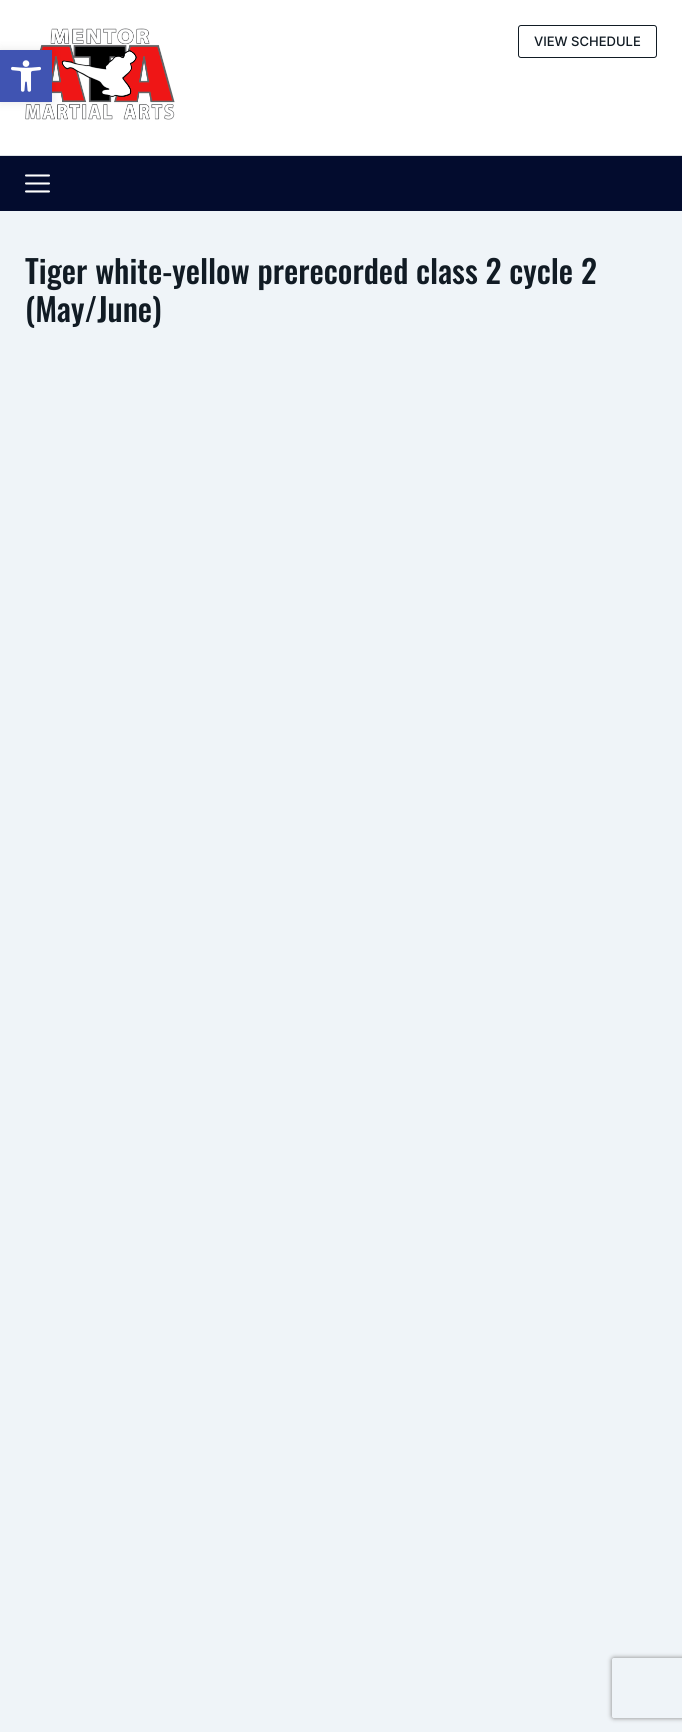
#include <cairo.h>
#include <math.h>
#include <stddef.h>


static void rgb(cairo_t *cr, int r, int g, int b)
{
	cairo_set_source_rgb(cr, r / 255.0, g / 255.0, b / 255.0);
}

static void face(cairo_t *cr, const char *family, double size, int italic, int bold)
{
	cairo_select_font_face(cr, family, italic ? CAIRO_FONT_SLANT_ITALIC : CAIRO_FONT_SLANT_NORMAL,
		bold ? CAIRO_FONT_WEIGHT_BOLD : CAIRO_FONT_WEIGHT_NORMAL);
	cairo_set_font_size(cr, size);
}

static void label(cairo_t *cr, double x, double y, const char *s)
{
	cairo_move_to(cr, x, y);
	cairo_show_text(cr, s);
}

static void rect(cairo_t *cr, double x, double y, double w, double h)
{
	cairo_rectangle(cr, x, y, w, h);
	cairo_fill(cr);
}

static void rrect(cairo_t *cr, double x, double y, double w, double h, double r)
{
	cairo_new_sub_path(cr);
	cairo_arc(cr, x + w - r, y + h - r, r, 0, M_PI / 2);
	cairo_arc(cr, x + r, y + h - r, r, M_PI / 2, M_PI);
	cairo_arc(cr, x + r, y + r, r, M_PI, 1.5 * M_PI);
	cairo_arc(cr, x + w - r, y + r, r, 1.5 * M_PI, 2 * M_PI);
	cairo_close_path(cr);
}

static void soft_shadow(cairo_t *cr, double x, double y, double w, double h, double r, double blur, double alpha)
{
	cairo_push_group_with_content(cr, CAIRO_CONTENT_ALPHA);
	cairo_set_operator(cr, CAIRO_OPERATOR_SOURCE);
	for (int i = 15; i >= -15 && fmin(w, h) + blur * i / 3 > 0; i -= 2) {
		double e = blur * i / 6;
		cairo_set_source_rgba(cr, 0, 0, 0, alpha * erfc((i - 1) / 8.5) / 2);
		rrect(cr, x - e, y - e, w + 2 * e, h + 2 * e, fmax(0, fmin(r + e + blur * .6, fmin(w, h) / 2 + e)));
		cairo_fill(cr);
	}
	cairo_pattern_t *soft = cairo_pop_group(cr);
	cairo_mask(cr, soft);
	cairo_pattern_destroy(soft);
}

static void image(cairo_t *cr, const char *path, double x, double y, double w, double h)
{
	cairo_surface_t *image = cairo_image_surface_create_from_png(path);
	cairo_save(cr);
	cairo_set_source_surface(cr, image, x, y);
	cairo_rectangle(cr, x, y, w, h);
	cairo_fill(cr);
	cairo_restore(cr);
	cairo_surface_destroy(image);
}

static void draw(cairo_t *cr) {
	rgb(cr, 239, 244, 248);
	cairo_paint(cr);
	rgb(cr, 255, 255, 255);
	rect(cr, 0, 0, 682, 155);
	image(cr, "image1.png", 25, 28, 150, 92);
	rgb(cr, 0, 0, 0);
	soft_shadow(cr, 0, 50, 52, 52, 0, 5, 0.1);
	rgb(cr, 64, 84, 178);
	rect(cr, 0, 50, 52, 52);
	image(cr, "image0.png", 11, 60, 30, 32);
	rgb(cr, 222, 226, 230);
	rect(cr, 0, 155, 682, 1);
	rrect(cr, 518.5, 25.5, 138, 32, 2.5);
	rgb(cr, 17, 27, 36);
	cairo_set_line_width(cr, 1);
	cairo_stroke(cr);
	face(cr, "Inter Medium", 13, 0, 0);
	label(cr, 534, 46, "VIEW SCHEDULE");
	rgb(cr, 3, 12, 46);
	rect(cr, 0, 156, 682, 55);
	image(cr, "image2.png", 25, 174, 25, 19);
	face(cr, "Oswald Medium", 32, 0, 0);
	rgb(cr, 17, 27, 36);
	label(cr, 25, 284, "Tiger white-yellow prerecorded class 2 cycle 2");
	label(cr, 25, 322, "(May/June)");
	cairo_save(cr);
	cairo_set_fill_rule(cr, CAIRO_FILL_RULE_EVEN_ODD);
	cairo_new_path(cr);
	cairo_move_to(cr, 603, 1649);
	cairo_line_to(cr, 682, 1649);
	cairo_line_to(cr, 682, 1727);
	cairo_line_to(cr, 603, 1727);
	cairo_close_path(cr);
	cairo_move_to(cr, 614, 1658);
	cairo_line_to(cr, 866, 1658);
	cairo_curve_to(cr, 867, 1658, 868, 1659, 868, 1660);
	cairo_line_to(cr, 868, 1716);
	cairo_curve_to(cr, 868, 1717, 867, 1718, 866, 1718);
	cairo_line_to(cr, 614, 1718);
	cairo_curve_to(cr, 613, 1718, 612, 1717, 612, 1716);
	cairo_line_to(cr, 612, 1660);
	cairo_curve_to(cr, 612, 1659, 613, 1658, 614, 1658);
	cairo_close_path(cr);
	cairo_clip(cr);
	rgb(cr, 128, 128, 128);
	soft_shadow(cr, 612, 1658, 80, 60, 2, 2.5, 1);
	cairo_restore(cr);
}

int main(void) {
	cairo_surface_t *surface = cairo_image_surface_create(CAIRO_FORMAT_RGB24, 682, 1732);
	cairo_t *cr = cairo_create(surface);
	cairo_font_options_t *options = cairo_font_options_create();
	cairo_font_options_set_hint_metrics(options, CAIRO_HINT_METRICS_OFF);
	cairo_font_options_set_hint_style(options, CAIRO_HINT_STYLE_NONE);
	cairo_set_font_options(cr, options);
	cairo_set_miter_limit(cr, 4);
	draw(cr);
	cairo_surface_write_to_png(surface, "render.png");
	cairo_font_options_destroy(options);
	cairo_destroy(cr);
	cairo_surface_destroy(surface);
	return 0;
}
